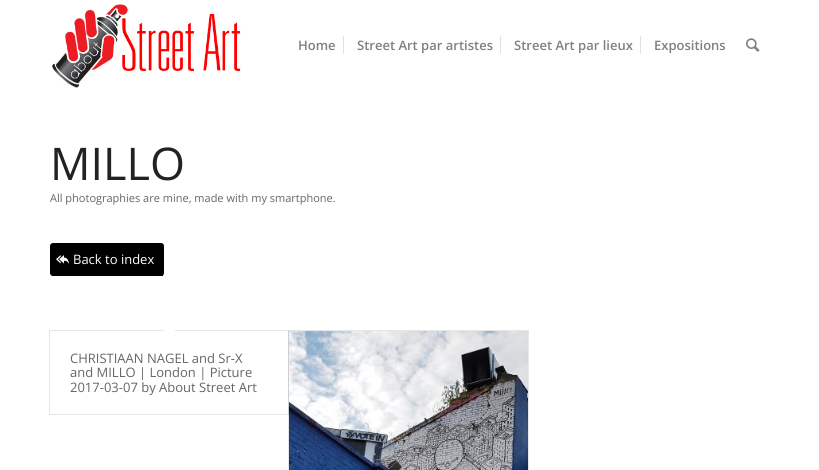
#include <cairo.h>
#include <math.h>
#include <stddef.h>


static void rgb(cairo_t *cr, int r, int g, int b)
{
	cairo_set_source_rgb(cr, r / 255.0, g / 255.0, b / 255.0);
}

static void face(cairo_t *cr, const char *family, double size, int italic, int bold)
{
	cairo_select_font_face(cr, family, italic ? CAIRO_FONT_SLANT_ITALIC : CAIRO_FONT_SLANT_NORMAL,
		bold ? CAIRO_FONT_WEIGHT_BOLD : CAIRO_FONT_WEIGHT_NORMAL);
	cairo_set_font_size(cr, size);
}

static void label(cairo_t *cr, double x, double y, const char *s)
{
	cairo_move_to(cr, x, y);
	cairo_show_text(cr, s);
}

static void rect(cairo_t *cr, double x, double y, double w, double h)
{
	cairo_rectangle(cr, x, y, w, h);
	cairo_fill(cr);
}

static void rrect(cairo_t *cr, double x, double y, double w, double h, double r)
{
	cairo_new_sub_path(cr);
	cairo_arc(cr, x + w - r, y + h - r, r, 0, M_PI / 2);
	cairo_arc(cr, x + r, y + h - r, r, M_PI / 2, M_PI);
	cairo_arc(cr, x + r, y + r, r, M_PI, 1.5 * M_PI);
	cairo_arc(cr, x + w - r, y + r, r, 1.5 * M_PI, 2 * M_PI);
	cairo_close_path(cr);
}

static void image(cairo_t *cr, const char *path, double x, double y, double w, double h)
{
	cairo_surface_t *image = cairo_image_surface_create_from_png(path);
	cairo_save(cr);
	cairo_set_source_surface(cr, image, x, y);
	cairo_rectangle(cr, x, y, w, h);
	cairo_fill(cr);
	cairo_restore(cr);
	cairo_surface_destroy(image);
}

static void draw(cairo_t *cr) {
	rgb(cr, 255, 255, 255);
	cairo_paint(cr);
	image(cr, "image0.png", 52, 4, 189, 84);
	face(cr, "Open Sans SemiBold", 13, 0, 0);
	rgb(cr, 128, 128, 128);
	label(cr, 298, 50, "Home");
	label(cr, 357, 50, "Street Art par artistes");
	rgb(cr, 225, 225, 225);
	rect(cr, 343, 36, 1, 18);
	rgb(cr, 128, 128, 128);
	label(cr, 514, 50, "Street Art par lieux");
	rgb(cr, 225, 225, 225);
	rect(cr, 500, 36, 1, 18);
	rgb(cr, 128, 128, 128);
	label(cr, 654, 50, "Expositions");
	rgb(cr, 225, 225, 225);
	rect(cr, 640, 36, 1, 18);
	image(cr, "image1.png", 746, 38, 14, 14);
	face(cr, "Open Sans", 45, 0, 0);
	rgb(cr, 34, 34, 34);
	label(cr, 50, 180, "MILLO");
	face(cr, "Open Sans", 11, 0, 0);
	rgb(cr, 102, 102, 102);
	label(cr, 50, 202, "All photographies are mine, made with my smartphone.");
	rgb(cr, 0, 0, 0);
	rrect(cr, 50, 243, 114, 33, 3);
	cairo_fill(cr);
	rect(cr, 52, 275, 111, 1);
	image(cr, "image2.png", 56, 255, 13, 9);
	face(cr, "Open Sans", 13, 0, 0);
	rgb(cr, 255, 255, 255);
	label(cr, 73, 264, "Back to index");
	cairo_rectangle(cr, 49.5, 330.5, 239, 84);
	rgb(cr, 230, 230, 230);
	cairo_set_line_width(cr, 1);
	cairo_stroke(cr);
	rgb(cr, 255, 255, 255);
	cairo_new_path(cr);
	cairo_move_to(cr, 169, 325);
	cairo_line_to(cr, 176.5, 332);
	cairo_line_to(cr, 169, 339);
	cairo_line_to(cr, 162, 332);
	cairo_close_path(cr);
	cairo_fill(cr);
	rgb(cr, 102, 102, 102);
	label(cr, 70, 363, "CHRISTIAAN NAGEL and Sr-X");
	label(cr, 70, 377, "and MILLO | London | Picture");
	label(cr, 70, 392, "2017-03-07 by About Street Art");
	cairo_rectangle(cr, 288.5, 330.5, 240, 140);
	cairo_set_source_rgba(cr, 0, 0, 0, 0.1);
	cairo_stroke(cr);
	image(cr, "image3.png", 289, 331, 239, 139);
}

int main(void) {
	cairo_surface_t *surface = cairo_image_surface_create(CAIRO_FORMAT_RGB24, 819, 470);
	cairo_t *cr = cairo_create(surface);
	cairo_font_options_t *options = cairo_font_options_create();
	cairo_font_options_set_hint_metrics(options, CAIRO_HINT_METRICS_OFF);
	cairo_font_options_set_hint_style(options, CAIRO_HINT_STYLE_NONE);
	cairo_set_font_options(cr, options);
	cairo_set_miter_limit(cr, 4);
	draw(cr);
	cairo_surface_write_to_png(surface, "render.png");
	cairo_font_options_destroy(options);
	cairo_destroy(cr);
	cairo_surface_destroy(surface);
	return 0;
}
